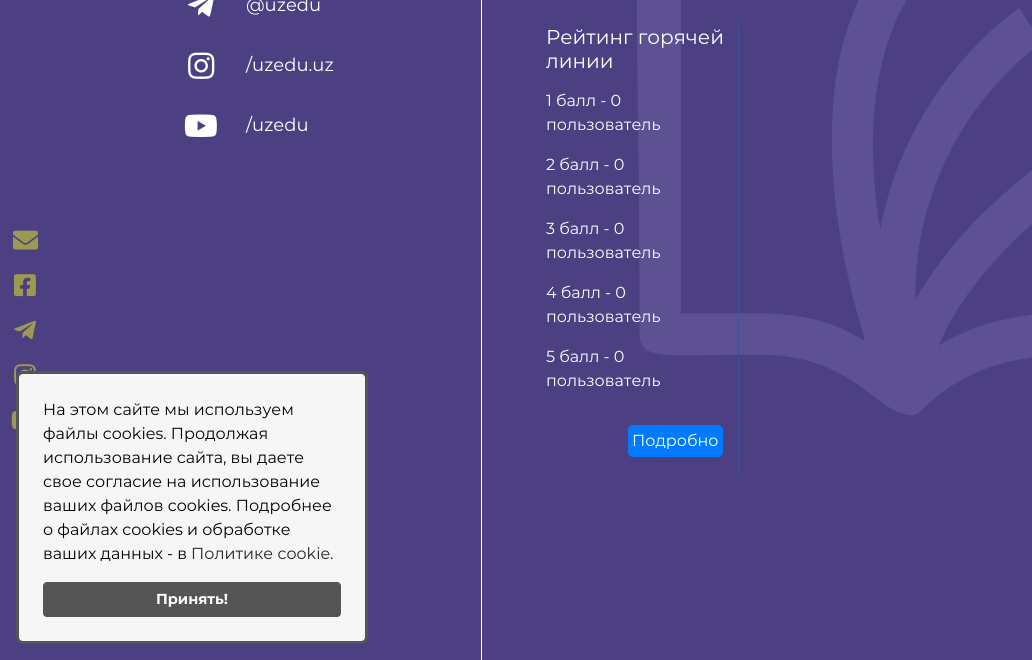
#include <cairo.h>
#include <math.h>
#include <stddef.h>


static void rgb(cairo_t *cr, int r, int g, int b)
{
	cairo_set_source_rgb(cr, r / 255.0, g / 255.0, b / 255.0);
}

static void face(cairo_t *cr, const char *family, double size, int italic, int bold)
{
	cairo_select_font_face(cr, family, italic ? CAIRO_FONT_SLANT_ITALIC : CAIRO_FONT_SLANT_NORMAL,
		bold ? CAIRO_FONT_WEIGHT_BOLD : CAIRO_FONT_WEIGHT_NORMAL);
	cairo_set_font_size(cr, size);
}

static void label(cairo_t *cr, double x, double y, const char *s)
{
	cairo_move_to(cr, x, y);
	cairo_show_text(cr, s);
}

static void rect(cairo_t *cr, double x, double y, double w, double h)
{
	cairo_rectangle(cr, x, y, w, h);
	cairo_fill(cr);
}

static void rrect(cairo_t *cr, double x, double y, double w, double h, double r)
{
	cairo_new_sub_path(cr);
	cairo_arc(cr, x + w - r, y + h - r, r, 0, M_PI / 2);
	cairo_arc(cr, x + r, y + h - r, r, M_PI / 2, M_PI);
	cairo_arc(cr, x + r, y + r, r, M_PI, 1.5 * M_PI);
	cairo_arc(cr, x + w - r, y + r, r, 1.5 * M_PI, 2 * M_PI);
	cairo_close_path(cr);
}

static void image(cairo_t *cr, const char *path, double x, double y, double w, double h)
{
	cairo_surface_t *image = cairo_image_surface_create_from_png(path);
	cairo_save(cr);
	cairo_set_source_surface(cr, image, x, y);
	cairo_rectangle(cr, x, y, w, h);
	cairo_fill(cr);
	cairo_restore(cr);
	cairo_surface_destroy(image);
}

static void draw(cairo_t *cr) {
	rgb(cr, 76, 64, 131);
	cairo_paint(cr);
	image(cr, "image0.png", 13, 230, 25, 20);
	image(cr, "image1.png", 14, 274, 22, 23);
	image(cr, "image2.png", 14, 320, 22, 20);
	image(cr, "image3.png", 14, 364, 22, 21);
	image(cr, "image4.png", 11, 411, 5, 19);
	rgb(cr, 255, 255, 255);
	rect(cr, 481, 0, 1, 660);
	image(cr, "image5.png", 188, 0, 26, 17);
	face(cr, "Montserrat", 18, 0, 0);
	label(cr, 246, 11, "@uzedu");
	image(cr, "image6.png", 188, 52, 27, 27);
	label(cr, 246, 71, "/uzedu.uz");
	image(cr, "image7.png", 184, 114, 33, 23);
	label(cr, 246, 131, "/uzedu");
	image(cr, "image8.png", 636, 0, 396, 416);
	face(cr, "Montserrat", 20, 0, 0);
	label(cr, 546, 44, "Рейтинг горячей");
	label(cr, 546, 68, "линии");
	rgb(cr, 57, 84, 153);
	rect(cr, 738, 25, 1, 448);
	face(cr, "Montserrat", 16, 0, 0);
	rgb(cr, 255, 255, 255);
	label(cr, 546, 106, "1 балл - 0");
	label(cr, 546, 130, "пользователь");
	label(cr, 546, 170, "2 балл - 0");
	label(cr, 546, 194, "пользователь");
	label(cr, 546, 234, "3 балл - 0");
	label(cr, 546, 258, "пользователь");
	label(cr, 546, 298, "4 балл - 0");
	label(cr, 546, 322, "пользователь");
	label(cr, 546, 362, "5 балл - 0");
	label(cr, 546, 386, "пользователь");
	rgb(cr, 0, 123, 255);
	rrect(cr, 628, 425, 95, 32, 5);
	cairo_fill(cr);
	rgb(cr, 255, 255, 255);
	label(cr, 632, 446, "Подробно");
	rgb(cr, 246, 246, 246);
	rrect(cr, 17.5, 372.5, 349, 270, 5.5);
	cairo_fill_preserve(cr);
	rgb(cr, 85, 85, 85);
	cairo_set_line_width(cr, 3);
	cairo_stroke(cr);
	rgb(cr, 0, 0, 0);
	label(cr, 43, 415, "На этом сайте мы используем");
	label(cr, 43, 439, "файлы cookies. Продолжая");
	label(cr, 43, 463, "использование сайта, вы даете");
	label(cr, 43, 487, "свое согласие на использование");
	label(cr, 43, 511, "ваших файлов cookies. Подробнее");
	label(cr, 43, 535, "о файлах cookies и обработке");
	label(cr, 43, 559, "ваших данных - в");
	rgb(cr, 37, 37, 37);
	label(cr, 191, 559, "Политике cookie.");
	rgb(cr, 85, 85, 85);
	rrect(cr, 43, 582, 298, 35, 4);
	cairo_fill(cr);
	face(cr, "Montserrat", 14.5, 0, 1);
	rgb(cr, 255, 255, 255);
	label(cr, 156, 604, "Принять!");
}

int main(void) {
	cairo_surface_t *surface = cairo_image_surface_create(CAIRO_FORMAT_RGB24, 1032, 660);
	cairo_t *cr = cairo_create(surface);
	cairo_font_options_t *options = cairo_font_options_create();
	cairo_font_options_set_hint_metrics(options, CAIRO_HINT_METRICS_OFF);
	cairo_font_options_set_hint_style(options, CAIRO_HINT_STYLE_NONE);
	cairo_set_font_options(cr, options);
	cairo_set_miter_limit(cr, 4);
	draw(cr);
	cairo_surface_write_to_png(surface, "render.png");
	cairo_font_options_destroy(options);
	cairo_destroy(cr);
	cairo_surface_destroy(surface);
	return 0;
}
